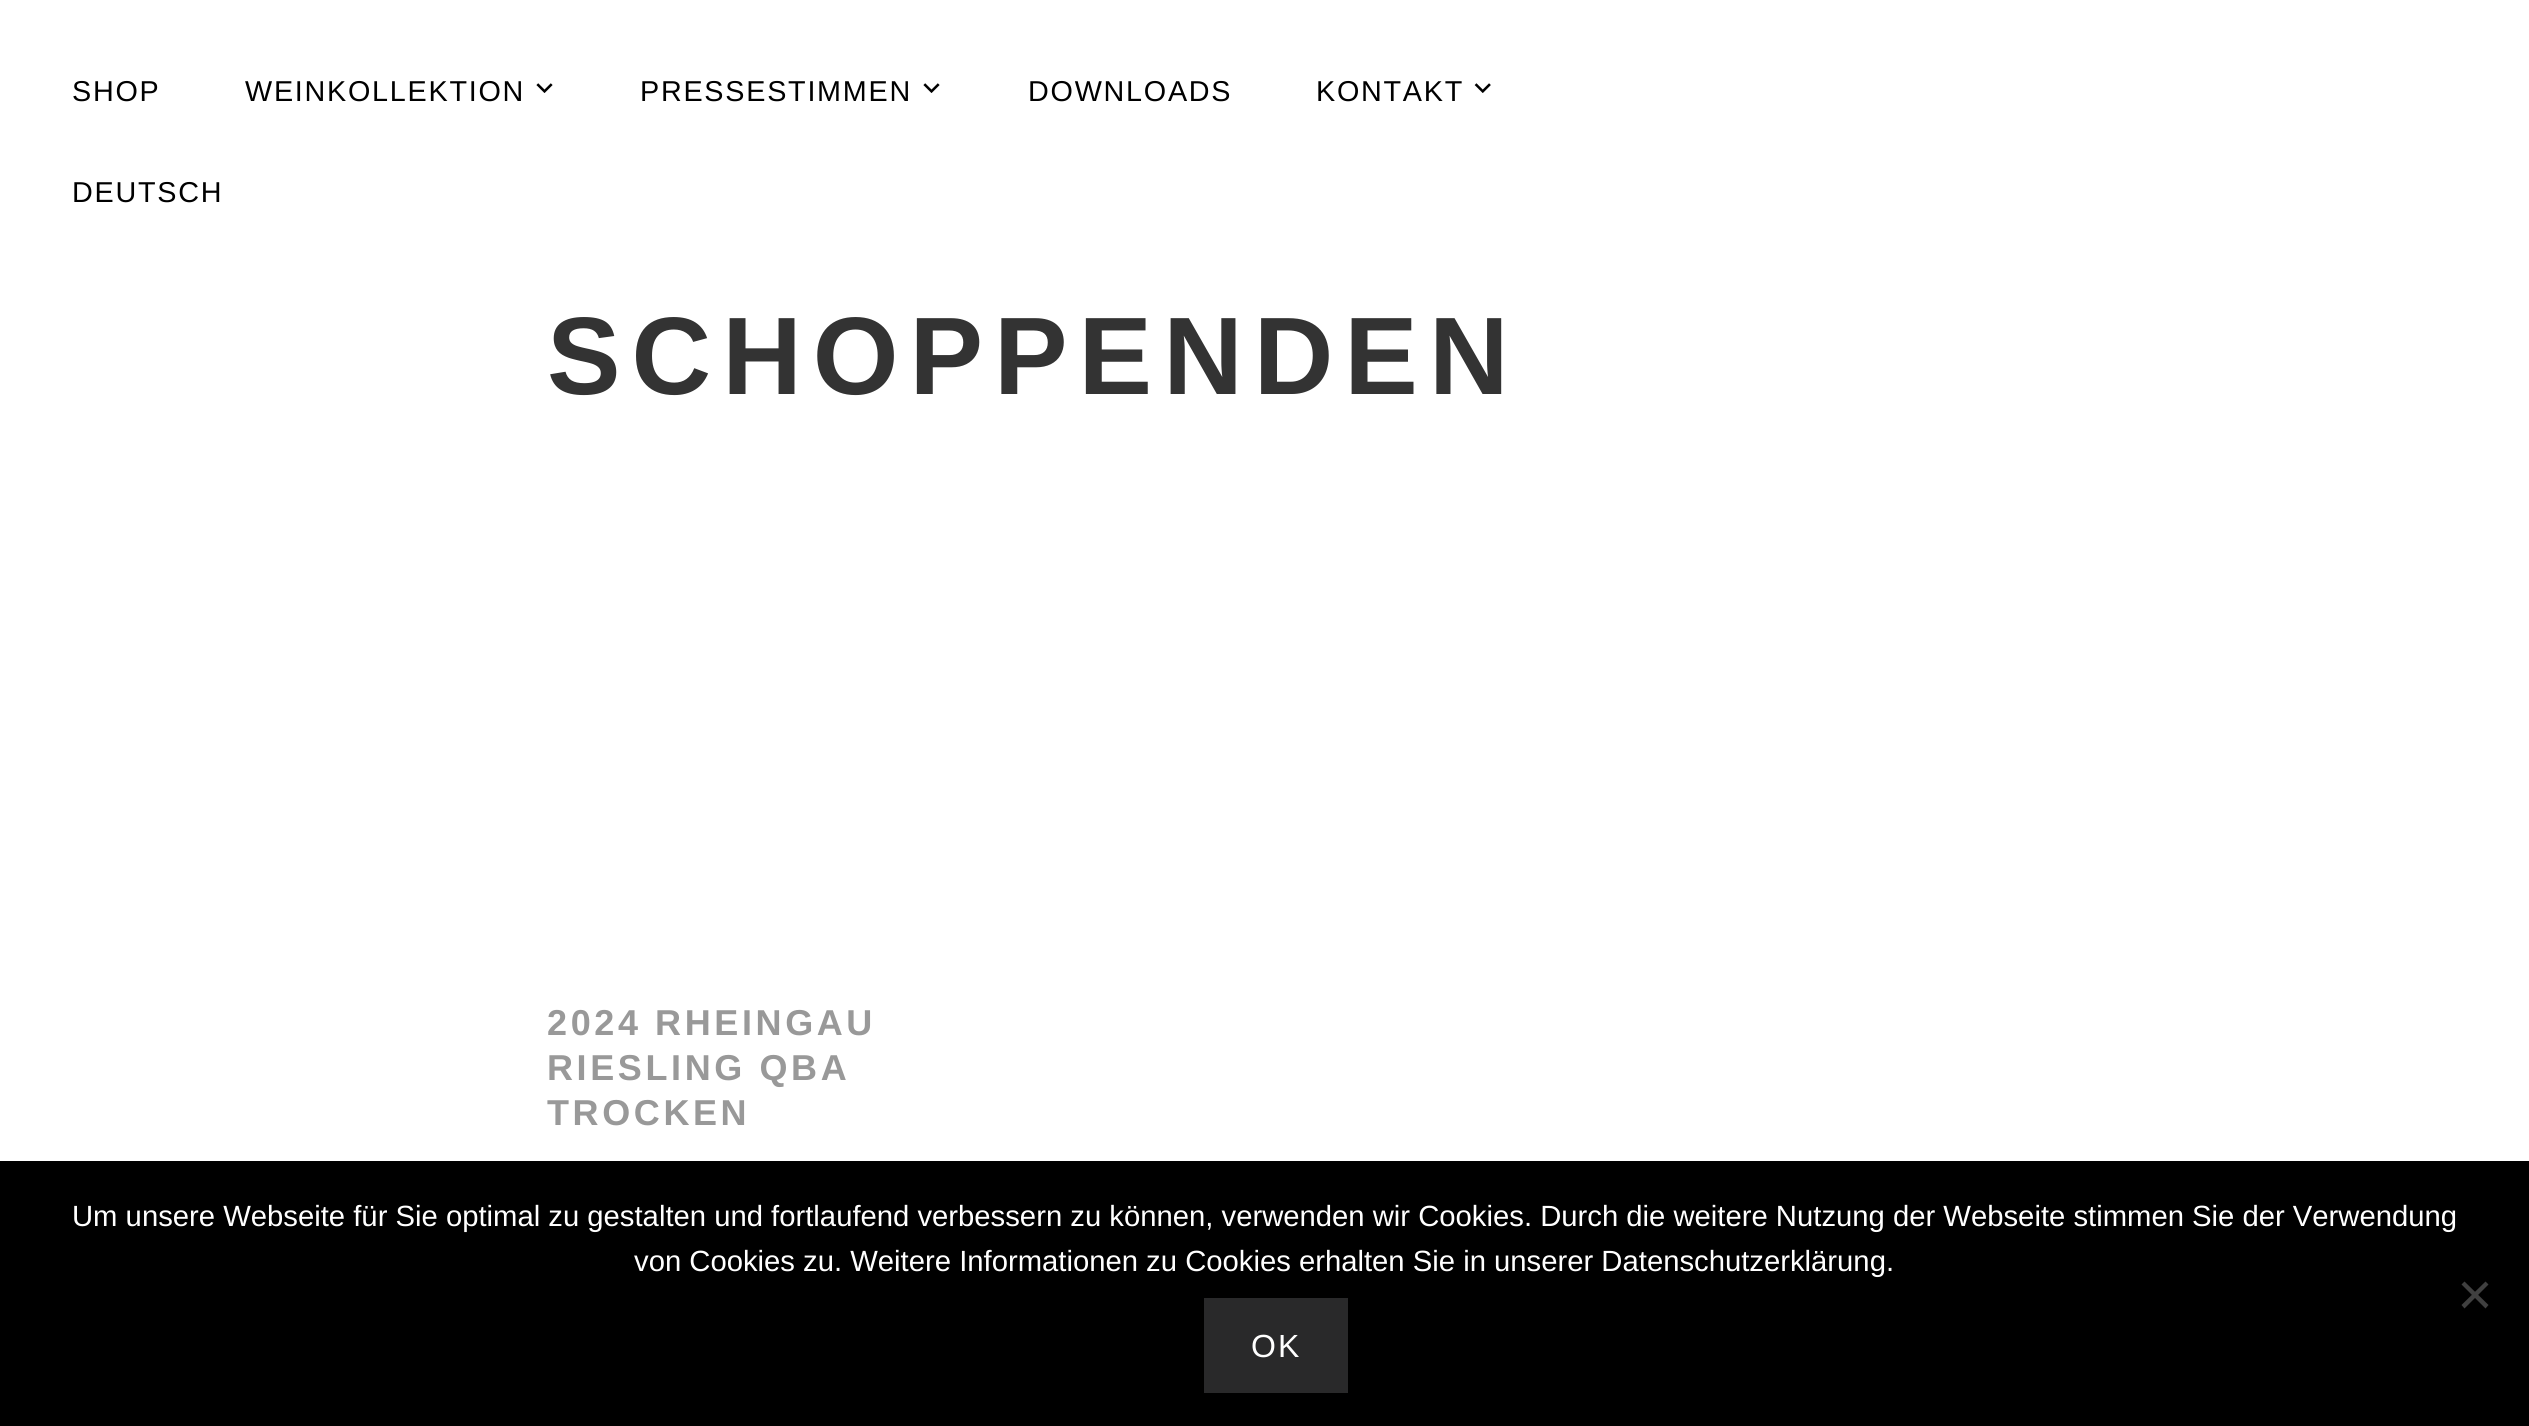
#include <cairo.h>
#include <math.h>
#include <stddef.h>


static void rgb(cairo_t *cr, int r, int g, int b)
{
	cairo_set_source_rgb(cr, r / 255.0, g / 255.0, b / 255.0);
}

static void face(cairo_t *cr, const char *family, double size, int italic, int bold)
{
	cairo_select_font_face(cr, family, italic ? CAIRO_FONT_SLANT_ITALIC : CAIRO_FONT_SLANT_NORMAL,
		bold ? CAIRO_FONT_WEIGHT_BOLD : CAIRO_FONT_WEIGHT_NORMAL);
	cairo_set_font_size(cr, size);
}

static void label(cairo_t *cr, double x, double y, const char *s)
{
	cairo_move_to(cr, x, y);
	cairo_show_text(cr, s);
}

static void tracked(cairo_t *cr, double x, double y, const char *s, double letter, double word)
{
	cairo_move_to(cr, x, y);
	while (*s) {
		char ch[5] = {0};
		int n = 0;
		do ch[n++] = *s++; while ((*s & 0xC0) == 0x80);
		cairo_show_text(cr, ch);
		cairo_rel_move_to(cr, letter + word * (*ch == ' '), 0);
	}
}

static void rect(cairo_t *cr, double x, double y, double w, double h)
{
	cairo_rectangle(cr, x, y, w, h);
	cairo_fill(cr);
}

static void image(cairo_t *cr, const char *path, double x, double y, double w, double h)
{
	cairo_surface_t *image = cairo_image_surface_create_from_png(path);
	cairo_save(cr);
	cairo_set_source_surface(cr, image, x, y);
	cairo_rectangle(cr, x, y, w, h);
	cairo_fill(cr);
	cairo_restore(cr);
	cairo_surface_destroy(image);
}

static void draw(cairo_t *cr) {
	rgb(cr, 255, 255, 255);
	cairo_paint(cr);
	face(cr, "Liberation Sans", 28.75, 0, 0);
	rgb(cr, 0, 0, 0);
	tracked(cr, 72, 101, "SHOP", 1.75, 0);
	tracked(cr, 245, 101, "WEINKOLLEKTION", 1.75, 0);
	image(cr, "image0.png", 536, 83, 17, 10);
	tracked(cr, 640, 101, "PRESSESTIMMEN", 1.75, 0);
	image(cr, "image0.png", 923, 83, 17, 10);
	tracked(cr, 1028, 101, "DOWNLOADS", 1.75, 0);
	tracked(cr, 1316, 101, "KONTAKT", 1.75, 0);
	image(cr, "image1.png", 1474, 83, 17, 10);
	tracked(cr, 72, 202, "DEUTSCH", 1.75, 0);
	face(cr, "Liberation Sans", 110.25, 0, 1);
	rgb(cr, 51, 51, 51);
	tracked(cr, 547, 394, "SCHOPPENDEN", 11, 0);
	face(cr, "Liberation Sans", 36, 0, 1);
	rgb(cr, 153, 153, 153);
	tracked(cr, 547, 1035, "2024 RHEINGAU", 3.6, 0);
	tracked(cr, 547, 1080, "RIESLING QBA", 3.6, 0);
	tracked(cr, 547, 1125, "TROCKEN", 3.6, 0);
	rgb(cr, 0, 0, 0);
	rect(cr, 0, 1161, 2529, 265);
	face(cr, "Liberation Sans", 29.25, 0, 0);
	rgb(cr, 255, 255, 255);
	label(cr, 72, 1226, "Um unsere Webseite für Sie optimal zu gestalten und fortlaufend verbessern zu können, verwenden wir Cookies. Durch die weitere Nutzung der Webseite stimmen Sie der Verwendung");
	label(cr, 634, 1271, "von Cookies zu. Weitere Informationen zu Cookies erhalten Sie in unserer Datenschutzerklärung.");
	rgb(cr, 64, 64, 64);
	cairo_new_path(cr);
	cairo_move_to(cr, 2485.5, 1281.5);
	cairo_line_to(cr, 2488.5, 1284.5);
	cairo_line_to(cr, 2464.5, 1308.5);
	cairo_line_to(cr, 2461.5, 1305);
	cairo_close_path(cr);
	cairo_fill(cr);
	cairo_new_path(cr);
	cairo_move_to(cr, 2461.5, 1284.5);
	cairo_line_to(cr, 2464.5, 1281.5);
	cairo_line_to(cr, 2488.5, 1305);
	cairo_line_to(cr, 2485.5, 1308.5);
	cairo_close_path(cr);
	cairo_fill(cr);
	rgb(cr, 41, 41, 42);
	rect(cr, 1204, 1298, 144, 95);
	face(cr, "Liberation Sans", 32, 0, 0);
	rgb(cr, 255, 255, 255);
	tracked(cr, 1251, 1357, "OK", 2, 0);
}

int main(void) {
	cairo_surface_t *surface = cairo_image_surface_create(CAIRO_FORMAT_RGB24, 2529, 1426);
	cairo_t *cr = cairo_create(surface);
	cairo_font_options_t *options = cairo_font_options_create();
	cairo_font_options_set_hint_metrics(options, CAIRO_HINT_METRICS_OFF);
	cairo_font_options_set_hint_style(options, CAIRO_HINT_STYLE_NONE);
	cairo_set_font_options(cr, options);
	cairo_set_miter_limit(cr, 4);
	draw(cr);
	cairo_surface_write_to_png(surface, "render.png");
	cairo_font_options_destroy(options);
	cairo_destroy(cr);
	cairo_surface_destroy(surface);
	return 0;
}
